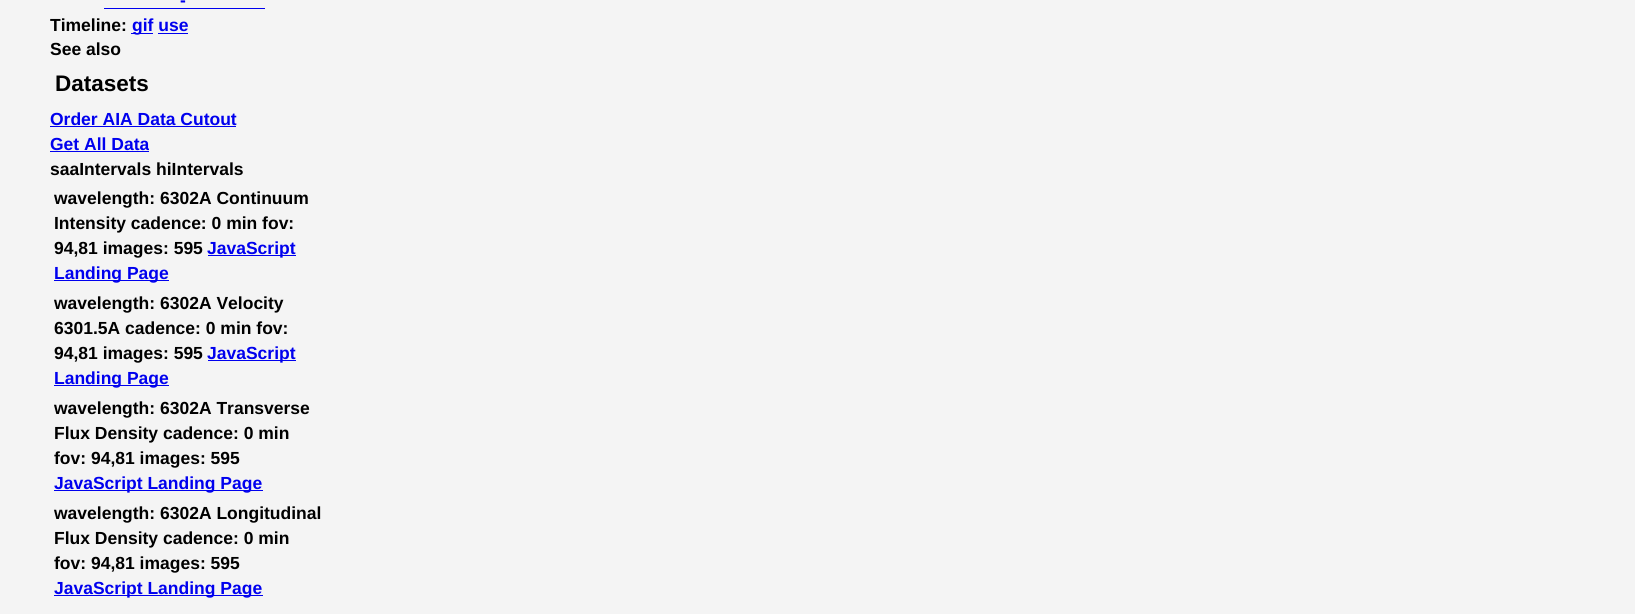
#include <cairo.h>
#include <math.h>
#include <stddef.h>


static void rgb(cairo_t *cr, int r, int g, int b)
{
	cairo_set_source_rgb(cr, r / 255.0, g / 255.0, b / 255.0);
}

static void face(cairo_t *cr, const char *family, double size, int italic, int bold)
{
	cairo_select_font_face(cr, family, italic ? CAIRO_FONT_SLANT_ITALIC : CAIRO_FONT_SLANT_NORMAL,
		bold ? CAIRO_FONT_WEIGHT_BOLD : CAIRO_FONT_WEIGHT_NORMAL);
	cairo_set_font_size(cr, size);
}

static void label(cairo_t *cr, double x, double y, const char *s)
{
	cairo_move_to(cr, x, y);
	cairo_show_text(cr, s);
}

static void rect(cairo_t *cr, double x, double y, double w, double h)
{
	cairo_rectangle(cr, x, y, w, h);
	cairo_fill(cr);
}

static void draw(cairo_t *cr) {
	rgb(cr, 244, 244, 244);
	cairo_paint(cr);
	face(cr, "Liberation Sans", 17.5, 0, 1);
	rgb(cr, 0, 0, 238);
	label(cr, 180, 6, "-");
	rect(cr, 104, 8, 161, 1);
	rgb(cr, 0, 0, 0);
	label(cr, 50, 31, "Timeline:");
	rgb(cr, 0, 0, 238);
	rect(cr, 131, 33, 22, 1);
	label(cr, 132, 31, "gif use");
	rect(cr, 158, 33, 30, 1);
	rgb(cr, 0, 0, 0);
	label(cr, 50, 55, "See also");
	face(cr, "Liberation Sans", 22.5, 0, 1);
	label(cr, 55, 91, "Datasets");
	face(cr, "Liberation Sans", 17.5, 0, 1);
	rgb(cr, 0, 0, 238);
	label(cr, 50, 125, "Order AIA Data Cutout");
	rect(cr, 50, 126, 186, 1);
	label(cr, 50, 150, "Get All Data");
	rect(cr, 50, 151, 99, 1);
	rgb(cr, 0, 0, 0);
	label(cr, 50, 175, "saaIntervals hiIntervals");
	label(cr, 54, 204, "wavelength: 6302A Continuum");
	label(cr, 54, 229, "Intensity cadence: 0 min fov:");
	label(cr, 54, 254, "94,81 images: 595");
	rgb(cr, 0, 0, 238);
	rect(cr, 208, 255, 88, 1);
	label(cr, 207, 254, "JavaScript");
	rect(cr, 54, 280, 115, 1);
	label(cr, 54, 279, "Landing Page");
	rgb(cr, 0, 0, 0);
	label(cr, 54, 309, "wavelength: 6302A Velocity");
	label(cr, 54, 334, "6301.5A cadence: 0 min fov:");
	label(cr, 54, 359, "94,81 images: 595");
	rgb(cr, 0, 0, 238);
	rect(cr, 208, 360, 88, 1);
	label(cr, 207, 359, "JavaScript");
	rect(cr, 54, 385, 115, 1);
	label(cr, 54, 384, "Landing Page");
	rgb(cr, 0, 0, 0);
	label(cr, 54, 414, "wavelength: 6302A Transverse");
	label(cr, 54, 439, "Flux Density cadence: 0 min");
	label(cr, 54, 464, "fov: 94,81 images: 595");
	rgb(cr, 0, 0, 238);
	rect(cr, 54, 490, 209, 1);
	label(cr, 54, 489, "JavaScript Landing Page");
	rgb(cr, 0, 0, 0);
	label(cr, 54, 519, "wavelength: 6302A Longitudinal");
	label(cr, 54, 544, "Flux Density cadence: 0 min");
	label(cr, 54, 569, "fov: 94,81 images: 595");
	rgb(cr, 0, 0, 238);
	rect(cr, 54, 595, 209, 1);
	label(cr, 54, 594, "JavaScript Landing Page");
}

int main(void) {
	cairo_surface_t *surface = cairo_image_surface_create(CAIRO_FORMAT_RGB24, 1635, 614);
	cairo_t *cr = cairo_create(surface);
	cairo_font_options_t *options = cairo_font_options_create();
	cairo_font_options_set_hint_metrics(options, CAIRO_HINT_METRICS_OFF);
	cairo_font_options_set_hint_style(options, CAIRO_HINT_STYLE_NONE);
	cairo_set_font_options(cr, options);
	cairo_set_miter_limit(cr, 4);
	draw(cr);
	cairo_surface_write_to_png(surface, "render.png");
	cairo_font_options_destroy(options);
	cairo_destroy(cr);
	cairo_surface_destroy(surface);
	return 0;
}
